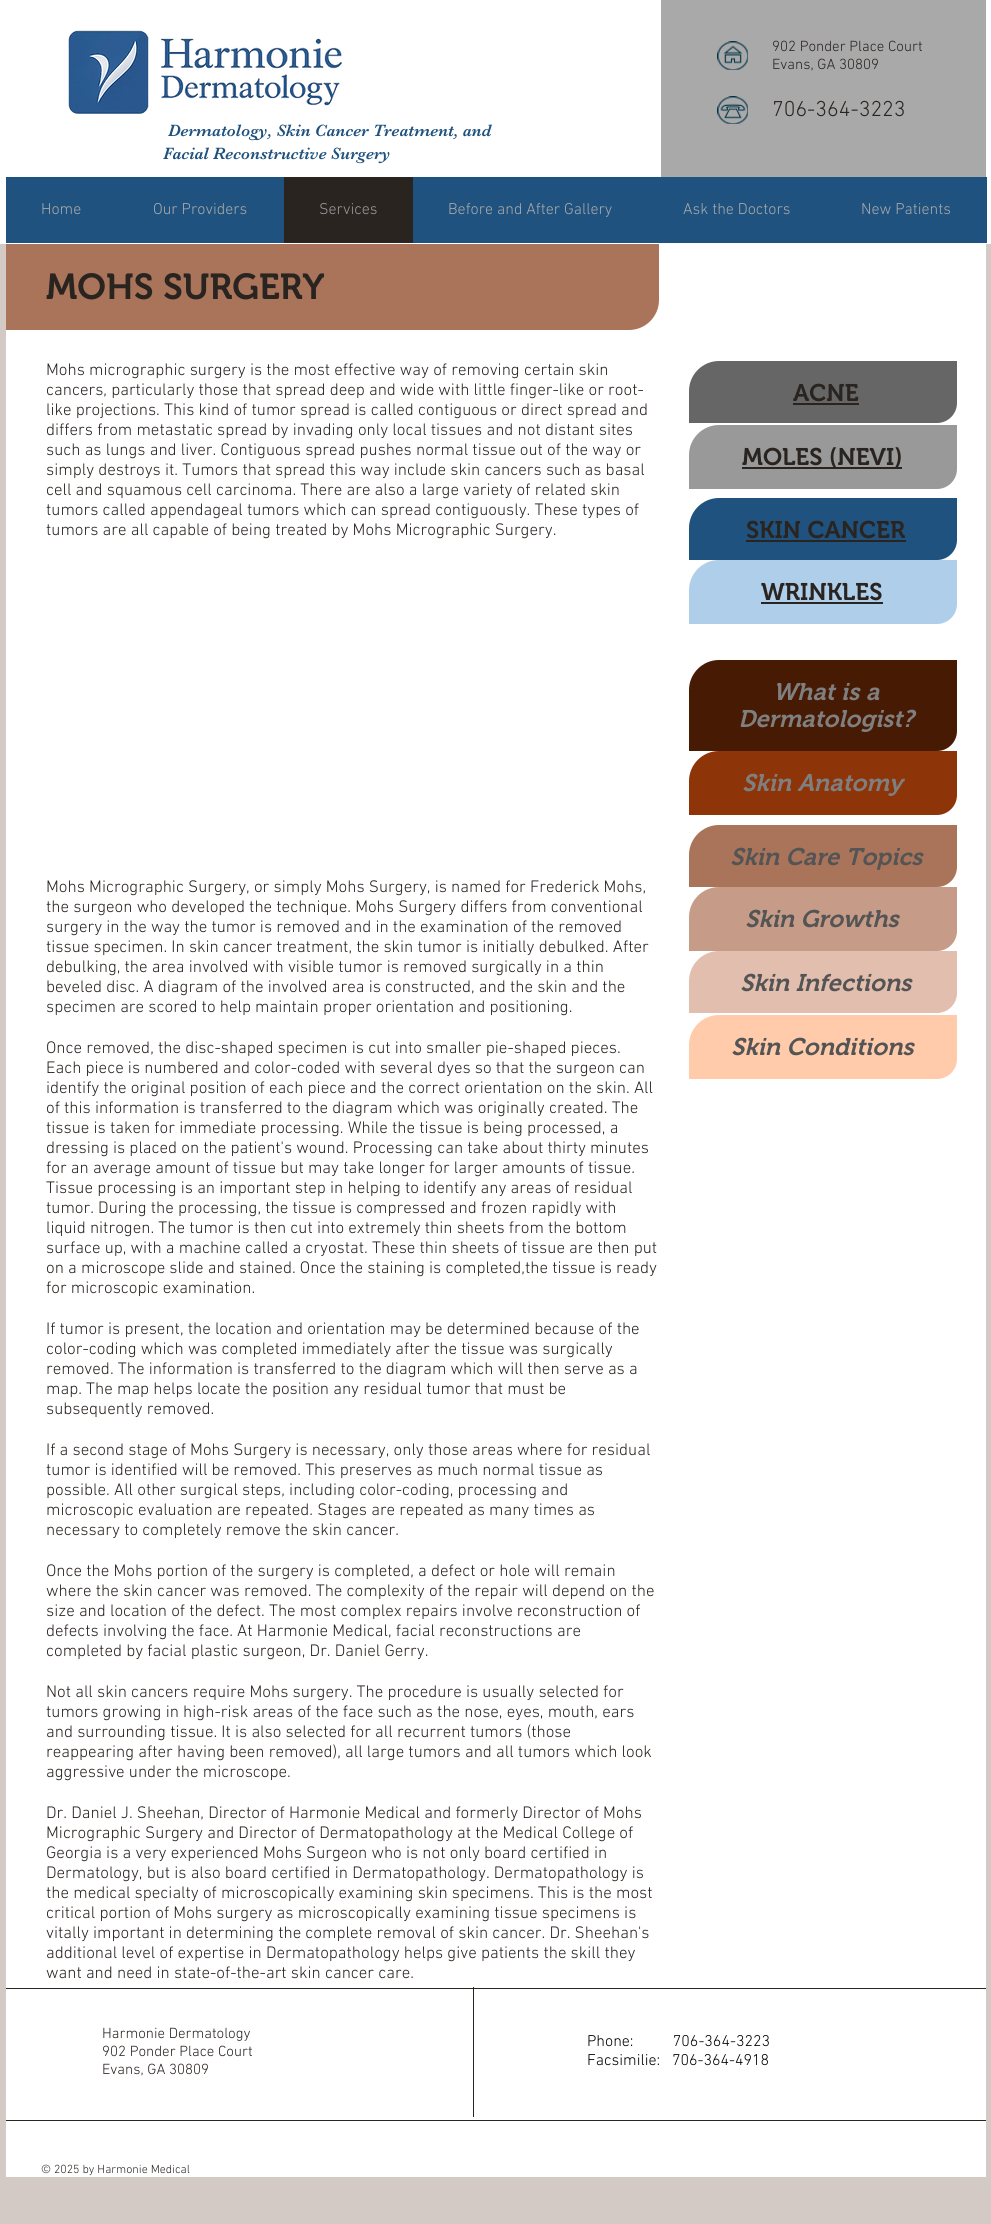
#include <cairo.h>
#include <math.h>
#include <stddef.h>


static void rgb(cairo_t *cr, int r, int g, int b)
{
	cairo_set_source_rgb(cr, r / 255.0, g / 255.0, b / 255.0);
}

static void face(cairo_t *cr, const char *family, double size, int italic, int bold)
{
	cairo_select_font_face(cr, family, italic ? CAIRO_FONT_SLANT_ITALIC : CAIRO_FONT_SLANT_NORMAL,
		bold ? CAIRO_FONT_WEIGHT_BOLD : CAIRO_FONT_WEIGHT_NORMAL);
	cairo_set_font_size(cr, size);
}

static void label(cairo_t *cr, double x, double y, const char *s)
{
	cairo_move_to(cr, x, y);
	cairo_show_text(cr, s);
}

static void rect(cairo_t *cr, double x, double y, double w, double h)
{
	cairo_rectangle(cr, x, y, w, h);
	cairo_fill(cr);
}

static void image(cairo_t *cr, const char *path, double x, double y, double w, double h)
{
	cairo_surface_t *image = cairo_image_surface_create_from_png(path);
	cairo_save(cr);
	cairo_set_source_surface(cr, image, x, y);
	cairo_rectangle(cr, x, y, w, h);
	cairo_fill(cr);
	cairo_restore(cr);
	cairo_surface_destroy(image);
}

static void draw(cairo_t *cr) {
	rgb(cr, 212, 202, 197);
	cairo_paint(cr);
	rgb(cr, 255, 255, 255);
	rect(cr, 0, 0, 991, 244);
	image(cr, "image0.png", 68, 30, 274, 84);
	rgb(cr, 169, 169, 169);
	rect(cr, 661, 0, 325, 177);
	image(cr, "image1.png", 717, 41, 31, 29);
	face(cr, "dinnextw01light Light", 15, 0, 0);
	rgb(cr, 42, 36, 33);
	label(cr, 772, 51, "902 Ponder Place Court");
	label(cr, 772, 69, "Evans, GA 30809");
	image(cr, "image2.png", 717, 96, 31, 28);
	face(cr, "dinnextw01light Light", 22, 0, 0);
	label(cr, 772, 116, "706-364-3223");
	face(cr, "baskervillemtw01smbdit", 17, 0, 0);
	rgb(cr, 31, 82, 127);
	label(cr, 168, 136, "Dermatology, Skin Cancer Treatment, and");
	label(cr, 163, 159, "Facial Reconstructive Surgery");
	rect(cr, 6, 177, 278, 66);
	face(cr, "dinnextw01light Light", 16, 0, 0);
	rgb(cr, 169, 169, 169);
	label(cr, 41, 214, "Home");
	label(cr, 153, 214, "Our Providers");
	rgb(cr, 42, 36, 33);
	rect(cr, 284, 177, 129, 66);
	rgb(cr, 153, 153, 153);
	label(cr, 319, 214, "Services");
	rgb(cr, 31, 82, 127);
	rect(cr, 413, 177, 574, 66);
	rgb(cr, 169, 169, 169);
	label(cr, 448, 214, "Before and After Gallery");
	label(cr, 683, 214, "Ask the Doctors");
	label(cr, 861, 214, "New Patients");
	rgb(cr, 255, 255, 255);
	rect(cr, 6, 244, 980, 1933);
	rgb(cr, 170, 116, 91);
	cairo_new_path(cr);
	cairo_move_to(cr, 6, 244);
	cairo_line_to(cr, 659, 244);
	cairo_line_to(cr, 659, 300);
	cairo_curve_to(cr, 659, 316.5, 645.5, 330, 629, 330);
	cairo_line_to(cr, 6, 330);
	cairo_close_path(cr);
	cairo_fill(cr);
	face(cr, "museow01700 SemiBold", 36, 0, 0);
	rgb(cr, 42, 36, 33);
	label(cr, 46, 299, "MOHS SURGERY");
	face(cr, "dinnextw01light Light", 17, 0, 0);
	label(cr, 46, 375, "Mohs micrographic surgery is the most effective way of removing certain skin");
	label(cr, 46, 395, "cancers, particularly those that spread deep and wide with little finger-like or root-");
	label(cr, 46, 415, "like projections. This kind of tumor spread is called contiguous or direct spread and");
	label(cr, 46, 435, "differs from metastatic spread by invading only local tissues and not distant sites");
	label(cr, 46, 455, "such as lungs and liver. Contiguous spread pushes normal tissue out of the way or");
	label(cr, 46, 475, "simply destroys it. Tumors that spread this way include skin cancers such as basal");
	label(cr, 46, 495, "cell and squamous cell carcinoma. There are also a large variety of related skin");
	label(cr, 46, 515, "tumors called appendageal tumors which can spread contiguously. These types of");
	label(cr, 46, 535, "tumors are all capable of being treated by Mohs Micrographic Surgery.");
	rgb(cr, 102, 102, 102);
	cairo_new_path(cr);
	cairo_move_to(cr, 719, 361);
	cairo_line_to(cr, 957, 361);
	cairo_line_to(cr, 957, 403);
	cairo_curve_to(cr, 957, 414, 948, 423, 937, 423);
	cairo_line_to(cr, 689, 423);
	cairo_line_to(cr, 689, 391);
	cairo_curve_to(cr, 689, 374.5, 702.5, 361, 719, 361);
	cairo_close_path(cr);
	cairo_fill(cr);
	face(cr, "museow01700 SemiBold", 24, 0, 0);
	rgb(cr, 42, 36, 33);
	label(cr, 793, 401, "ACNE");
	rect(cr, 793, 403, 66, 2);
	rgb(cr, 153, 153, 153);
	cairo_new_path(cr);
	cairo_move_to(cr, 719, 425);
	cairo_line_to(cr, 957, 425);
	cairo_line_to(cr, 957, 469);
	cairo_curve_to(cr, 957, 480, 948, 489, 937, 489);
	cairo_line_to(cr, 689, 489);
	cairo_line_to(cr, 689, 455);
	cairo_curve_to(cr, 689, 438.5, 702.5, 425, 719, 425);
	cairo_close_path(cr);
	cairo_fill(cr);
	rgb(cr, 42, 36, 33);
	rect(cr, 742, 467, 160, 2);
	label(cr, 742, 465, "MOLES (NEVI)");
	rgb(cr, 31, 82, 127);
	cairo_new_path(cr);
	cairo_move_to(cr, 719, 498);
	cairo_line_to(cr, 957, 498);
	cairo_line_to(cr, 957, 540);
	cairo_curve_to(cr, 957, 551, 948, 560, 937, 560);
	cairo_line_to(cr, 689, 560);
	cairo_line_to(cr, 689, 528);
	cairo_curve_to(cr, 689, 511.5, 702.5, 498, 719, 498);
	cairo_close_path(cr);
	cairo_fill(cr);
	rgb(cr, 42, 36, 33);
	label(cr, 746, 538, "SKIN CANCER");
	rect(cr, 746, 540, 160, 2);
	rgb(cr, 175, 206, 234);
	cairo_new_path(cr);
	cairo_move_to(cr, 719, 560);
	cairo_line_to(cr, 957, 560);
	cairo_line_to(cr, 957, 604);
	cairo_curve_to(cr, 957, 615, 948, 624, 937, 624);
	cairo_line_to(cr, 689, 624);
	cairo_line_to(cr, 689, 590);
	cairo_curve_to(cr, 689, 573.5, 702.5, 560, 719, 560);
	cairo_close_path(cr);
	cairo_fill(cr);
	rgb(cr, 42, 36, 33);
	label(cr, 761, 600, "WRINKLES");
	rect(cr, 761, 602, 122, 2);
	rgb(cr, 71, 26, 4);
	cairo_new_path(cr);
	cairo_move_to(cr, 719, 660);
	cairo_line_to(cr, 957, 660);
	cairo_line_to(cr, 957, 731);
	cairo_curve_to(cr, 957, 742, 948, 751, 937, 751);
	cairo_line_to(cr, 689, 751);
	cairo_line_to(cr, 689, 690);
	cairo_curve_to(cr, 689, 673.5, 702.5, 660, 719, 660);
	cairo_close_path(cr);
	cairo_fill(cr);
	face(cr, "museow01700 SemiBold", 24, 1, 0);
	rgb(cr, 127, 127, 127);
	label(cr, 773, 700, "What is a");
	label(cr, 738, 727, "Dermatologist?");
	rgb(cr, 142, 52, 9);
	cairo_new_path(cr);
	cairo_move_to(cr, 719, 751);
	cairo_line_to(cr, 957, 751);
	cairo_line_to(cr, 957, 795);
	cairo_curve_to(cr, 957, 806, 948, 815, 937, 815);
	cairo_line_to(cr, 689, 815);
	cairo_line_to(cr, 689, 781);
	cairo_curve_to(cr, 689, 764.5, 702.5, 751, 719, 751);
	cairo_close_path(cr);
	cairo_fill(cr);
	rgb(cr, 127, 127, 127);
	label(cr, 742, 791, "Skin Anatomy");
	rgb(cr, 170, 116, 91);
	cairo_new_path(cr);
	cairo_move_to(cr, 719, 825);
	cairo_line_to(cr, 957, 825);
	cairo_line_to(cr, 957, 867);
	cairo_curve_to(cr, 957, 878, 948, 887, 937, 887);
	cairo_line_to(cr, 689, 887);
	cairo_line_to(cr, 689, 855);
	cairo_curve_to(cr, 689, 838.5, 702.5, 825, 719, 825);
	cairo_close_path(cr);
	cairo_fill(cr);
	rgb(cr, 84, 84, 84);
	label(cr, 730, 865, "Skin Care Topics");
	face(cr, "dinnextw01light Light", 17, 0, 0);
	rgb(cr, 42, 36, 33);
	label(cr, 46, 892, "Mohs Micrographic Surgery, or simply Mohs Surgery, is named for Frederick Mohs,");
	label(cr, 46, 912, "the surgeon who developed the technique. Mohs Surgery differs from conventional");
	label(cr, 46, 932, "surgery in the way the tumor is removed and in the examination of the removed");
	label(cr, 46, 952, "tissue specimen. In skin cancer treatment, the skin tumor is initially debulked. After");
	label(cr, 46, 972, "debulking, the area involved with visible tumor is removed surgically in a thin");
	label(cr, 46, 992, "beveled disc. A diagram of the involved area is constructed, and the skin and the");
	label(cr, 46, 1012, "specimen are scored to help maintain proper orientation and positioning.");
	label(cr, 46, 1053, "Once removed, the disc-shaped specimen is cut into smaller pie-shaped pieces.");
	label(cr, 46, 1073, "Each piece is numbered and color-coded with several dyes so that the surgeon can");
	label(cr, 46, 1093, "identify the original position of each piece and the correct orientation on the skin. All");
	label(cr, 46, 1113, "of this information is transferred to the diagram which was originally created. The");
	label(cr, 46, 1133, "tissue is taken for immediate processing. While the tissue is being processed, a");
	label(cr, 46, 1153, "dressing is placed on the patient's wound. Processing can take about thirty minutes");
	label(cr, 46, 1173, "for an average amount of tissue but may take longer for larger amounts of tissue.");
	label(cr, 46, 1193, "Tissue processing is an important step in helping to identify any areas of residual");
	label(cr, 46, 1213, "tumor. During the processing, the tissue is compressed and frozen rapidly with");
	label(cr, 46, 1233, "liquid nitrogen. The tumor is then cut into extremely thin sheets from the bottom");
	label(cr, 46, 1253, "surface up, with a machine called a cryostat. These thin sheets of tissue are then put");
	label(cr, 46, 1273, "on a microscope slide and stained. Once the staining is completed,the tissue is ready");
	label(cr, 46, 1293, "for microscopic examination.");
	label(cr, 46, 1334, "If tumor is present, the location and orientation may be determined because of the");
	label(cr, 46, 1354, "color-coding which was completed immediately after the tissue was surgically");
	label(cr, 46, 1374, "removed. The information is transferred to the diagram which will then serve as a");
	label(cr, 46, 1394, "map. The map helps locate the position any residual tumor that must be");
	label(cr, 46, 1414, "subsequently removed.");
	label(cr, 46, 1455, "If a second stage of Mohs Surgery is necessary, only those areas where for residual");
	label(cr, 46, 1475, "tumor is identified will be removed. This preserves as much normal tissue as");
	label(cr, 46, 1495, "possible. All other surgical steps, including color-coding, processing and");
	label(cr, 46, 1515, "microscopic evaluation are repeated. Stages are repeated as many times as");
	label(cr, 46, 1535, "necessary to completely remove the skin cancer.");
	label(cr, 46, 1576, "Once the Mohs portion of the surgery is completed, a defect or hole will remain");
	label(cr, 46, 1596, "where the skin cancer was removed. The complexity of the repair will depend on the");
	label(cr, 46, 1616, "size and location of the defect. The most complex repairs involve reconstruction of");
	label(cr, 46, 1636, "defects involving the face. At Harmonie Medical, facial reconstructions are");
	label(cr, 46, 1656, "completed by facial plastic surgeon, Dr. Daniel Gerry.");
	label(cr, 46, 1697, "Not all skin cancers require Mohs surgery. The procedure is usually selected for");
	label(cr, 46, 1717, "tumors growing in high-risk areas of the face such as the nose, eyes, mouth, ears");
	label(cr, 46, 1737, "and surrounding tissue. It is also selected for all recurrent tumors (those");
	label(cr, 46, 1757, "reappearing after having been removed), all large tumors and all tumors which look");
	label(cr, 46, 1777, "aggressive under the microscope.");
	label(cr, 46, 1818, "Dr. Daniel J. Sheehan, Director of Harmonie Medical and formerly Director of Mohs");
	label(cr, 46, 1838, "Micrographic Surgery and Director of Dermatopathology at the Medical College of");
	label(cr, 46, 1858, "Georgia is a very experienced Mohs Surgeon who is not only board certified in");
	label(cr, 46, 1878, "Dermatology, but is also board certified in Dermatopathology. Dermatopathology is");
	label(cr, 46, 1898, "the medical specialty of microscopically examining skin specimens. This is the most");
	label(cr, 46, 1918, "critical portion of Mohs surgery as microscopically examining tissue specimens is");
	label(cr, 46, 1938, "vitally important in determining the complete removal of skin cancer. Dr. Sheehan's");
	label(cr, 46, 1958, "additional level of expertise in Dermatopathology helps give patients the skill they");
	label(cr, 46, 1978, "want and need in state-of-the-art skin cancer care.");
	rgb(cr, 198, 156, 137);
	cairo_new_path(cr);
	cairo_move_to(cr, 719, 887);
	cairo_line_to(cr, 957, 887);
	cairo_line_to(cr, 957, 931);
	cairo_curve_to(cr, 957, 942, 948, 951, 937, 951);
	cairo_line_to(cr, 689, 951);
	cairo_line_to(cr, 689, 917);
	cairo_curve_to(cr, 689, 900.5, 702.5, 887, 719, 887);
	cairo_close_path(cr);
	cairo_fill(cr);
	face(cr, "museow01700 SemiBold", 24, 1, 0);
	rgb(cr, 84, 84, 84);
	label(cr, 745, 927, "Skin Growths");
	rgb(cr, 226, 190, 174);
	cairo_new_path(cr);
	cairo_move_to(cr, 719, 951);
	cairo_line_to(cr, 957, 951);
	cairo_line_to(cr, 957, 993);
	cairo_curve_to(cr, 957, 1004, 948, 1013, 937, 1013);
	cairo_line_to(cr, 689, 1013);
	cairo_line_to(cr, 689, 981);
	cairo_curve_to(cr, 689, 964.5, 702.5, 951, 719, 951);
	cairo_close_path(cr);
	cairo_fill(cr);
	rgb(cr, 84, 84, 84);
	label(cr, 740, 991, "Skin Infections");
	rgb(cr, 255, 203, 170);
	cairo_new_path(cr);
	cairo_move_to(cr, 719, 1015);
	cairo_line_to(cr, 957, 1015);
	cairo_line_to(cr, 957, 1059);
	cairo_curve_to(cr, 957, 1070, 948, 1079, 937, 1079);
	cairo_line_to(cr, 689, 1079);
	cairo_line_to(cr, 689, 1045);
	cairo_curve_to(cr, 689, 1028.5, 702.5, 1015, 719, 1015);
	cairo_close_path(cr);
	cairo_fill(cr);
	rgb(cr, 84, 84, 84);
	label(cr, 731, 1055, "Skin Conditions");
	rgb(cr, 42, 36, 33);
	rect(cr, 6, 1988, 980, 1);
	rect(cr, 473, 1987, 1, 130);
	face(cr, "dinnextw01light Light", 15, 0, 0);
	label(cr, 102, 2038, "Harmonie Dermatology");
	label(cr, 102, 2056, "902 Ponder Place Court");
	label(cr, 102, 2074, "Evans, GA 30809");
	face(cr, "dinnextw01light Light", 16, 0, 0);
	rgb(cr, 0, 0, 0);
	label(cr, 587, 2046, "Phone:          706-364-3223");
	label(cr, 587, 2065, "Facsimilie:   706-364-4918");
	rgb(cr, 42, 36, 33);
	rect(cr, 6, 2120, 980, 1);
	face(cr, "dinnextw01light Light", 12, 0, 0);
	label(cr, 41, 2173, "© 2025 by Harmonie Medical");
}

int main(void) {
	cairo_surface_t *surface = cairo_image_surface_create(CAIRO_FORMAT_RGB24, 991, 2224);
	cairo_t *cr = cairo_create(surface);
	cairo_font_options_t *options = cairo_font_options_create();
	cairo_font_options_set_hint_metrics(options, CAIRO_HINT_METRICS_OFF);
	cairo_font_options_set_hint_style(options, CAIRO_HINT_STYLE_NONE);
	cairo_set_font_options(cr, options);
	cairo_set_miter_limit(cr, 4);
	draw(cr);
	cairo_surface_write_to_png(surface, "render.png");
	cairo_font_options_destroy(options);
	cairo_destroy(cr);
	cairo_surface_destroy(surface);
	return 0;
}
